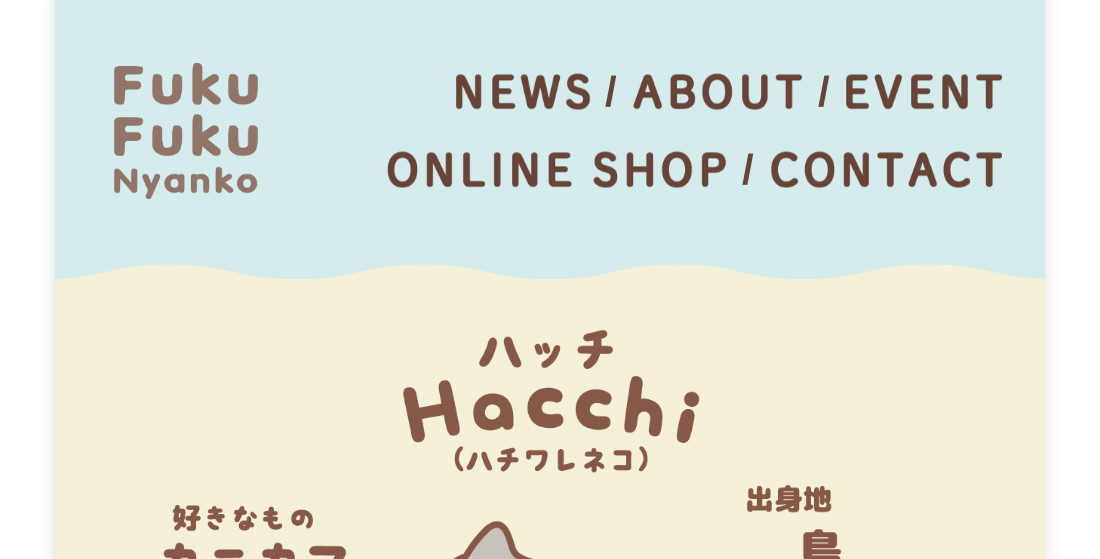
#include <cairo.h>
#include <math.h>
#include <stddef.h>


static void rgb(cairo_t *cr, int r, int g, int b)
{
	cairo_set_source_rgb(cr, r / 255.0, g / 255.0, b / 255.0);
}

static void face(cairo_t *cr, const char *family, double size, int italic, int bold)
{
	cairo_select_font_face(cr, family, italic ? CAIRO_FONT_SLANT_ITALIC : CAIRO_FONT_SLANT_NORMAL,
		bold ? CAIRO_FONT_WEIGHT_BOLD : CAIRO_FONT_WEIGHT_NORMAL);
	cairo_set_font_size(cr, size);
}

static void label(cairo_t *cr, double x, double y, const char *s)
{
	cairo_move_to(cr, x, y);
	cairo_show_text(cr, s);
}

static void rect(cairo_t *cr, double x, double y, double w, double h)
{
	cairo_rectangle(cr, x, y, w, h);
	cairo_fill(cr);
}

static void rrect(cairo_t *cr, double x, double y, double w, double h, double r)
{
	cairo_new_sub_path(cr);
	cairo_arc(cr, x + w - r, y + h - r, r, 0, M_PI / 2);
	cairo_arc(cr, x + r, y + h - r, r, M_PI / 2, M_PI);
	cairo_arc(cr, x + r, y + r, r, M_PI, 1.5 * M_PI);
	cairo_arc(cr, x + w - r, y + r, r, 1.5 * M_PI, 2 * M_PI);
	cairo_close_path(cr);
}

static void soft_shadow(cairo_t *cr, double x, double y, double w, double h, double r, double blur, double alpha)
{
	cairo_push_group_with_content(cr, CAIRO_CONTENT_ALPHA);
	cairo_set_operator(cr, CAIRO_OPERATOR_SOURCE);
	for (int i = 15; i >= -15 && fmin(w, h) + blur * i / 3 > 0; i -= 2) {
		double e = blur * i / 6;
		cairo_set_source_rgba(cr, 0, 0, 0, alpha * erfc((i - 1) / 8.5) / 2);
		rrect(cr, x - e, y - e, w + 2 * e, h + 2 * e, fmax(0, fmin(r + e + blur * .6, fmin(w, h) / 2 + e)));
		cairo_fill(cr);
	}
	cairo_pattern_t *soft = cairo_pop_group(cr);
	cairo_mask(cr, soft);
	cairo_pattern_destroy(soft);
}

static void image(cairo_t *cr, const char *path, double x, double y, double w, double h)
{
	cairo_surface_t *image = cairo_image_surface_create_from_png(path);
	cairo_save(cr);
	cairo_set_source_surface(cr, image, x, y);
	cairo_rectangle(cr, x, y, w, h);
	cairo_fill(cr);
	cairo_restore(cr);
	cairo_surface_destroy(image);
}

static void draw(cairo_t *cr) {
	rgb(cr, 255, 255, 255);
	cairo_paint(cr);
	rgb(cr, 222, 222, 222);
	soft_shadow(cr, 55, 0, 990, 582, 0, 7.5, 1);
	rgb(cr, 212, 236, 236);
	rect(cr, 55, 0, 990, 222);
	image(cr, "image0.png", 114, 63, 144, 136);
	image(cr, "image1.png", 456, 73, 135, 37);
	face(cr, "Liberation Sans", 42, 0, 1);
	rgb(cr, 104, 67, 55);
	label(cr, 605, 106, "/");
	image(cr, "image2.png", 633, 73, 169, 37);
	label(cr, 818, 106, "/");
	image(cr, "image3.png", 846, 74, 156, 36);
	image(cr, "image4.png", 387, 151, 339, 37);
	label(cr, 742, 184, "/");
	image(cr, "image5.png", 771, 151, 231, 37);
	rgb(cr, 245, 241, 216);
	rect(cr, 55, 264, 990, 295);
	image(cr, "image6.png", 55, 222, 990, 57);
	image(cr, "image7.png", 163, 329, 679, 230);
}

int main(void) {
	cairo_surface_t *surface = cairo_image_surface_create(CAIRO_FORMAT_RGB24, 1100, 559);
	cairo_t *cr = cairo_create(surface);
	cairo_font_options_t *options = cairo_font_options_create();
	cairo_font_options_set_hint_metrics(options, CAIRO_HINT_METRICS_OFF);
	cairo_font_options_set_hint_style(options, CAIRO_HINT_STYLE_NONE);
	cairo_set_font_options(cr, options);
	cairo_set_miter_limit(cr, 4);
	draw(cr);
	cairo_surface_write_to_png(surface, "render.png");
	cairo_font_options_destroy(options);
	cairo_destroy(cr);
	cairo_surface_destroy(surface);
	return 0;
}
